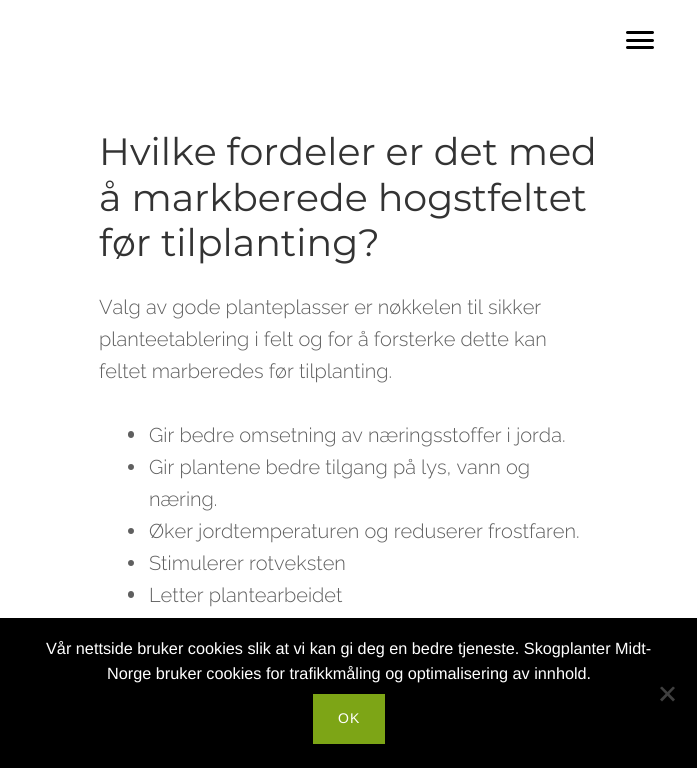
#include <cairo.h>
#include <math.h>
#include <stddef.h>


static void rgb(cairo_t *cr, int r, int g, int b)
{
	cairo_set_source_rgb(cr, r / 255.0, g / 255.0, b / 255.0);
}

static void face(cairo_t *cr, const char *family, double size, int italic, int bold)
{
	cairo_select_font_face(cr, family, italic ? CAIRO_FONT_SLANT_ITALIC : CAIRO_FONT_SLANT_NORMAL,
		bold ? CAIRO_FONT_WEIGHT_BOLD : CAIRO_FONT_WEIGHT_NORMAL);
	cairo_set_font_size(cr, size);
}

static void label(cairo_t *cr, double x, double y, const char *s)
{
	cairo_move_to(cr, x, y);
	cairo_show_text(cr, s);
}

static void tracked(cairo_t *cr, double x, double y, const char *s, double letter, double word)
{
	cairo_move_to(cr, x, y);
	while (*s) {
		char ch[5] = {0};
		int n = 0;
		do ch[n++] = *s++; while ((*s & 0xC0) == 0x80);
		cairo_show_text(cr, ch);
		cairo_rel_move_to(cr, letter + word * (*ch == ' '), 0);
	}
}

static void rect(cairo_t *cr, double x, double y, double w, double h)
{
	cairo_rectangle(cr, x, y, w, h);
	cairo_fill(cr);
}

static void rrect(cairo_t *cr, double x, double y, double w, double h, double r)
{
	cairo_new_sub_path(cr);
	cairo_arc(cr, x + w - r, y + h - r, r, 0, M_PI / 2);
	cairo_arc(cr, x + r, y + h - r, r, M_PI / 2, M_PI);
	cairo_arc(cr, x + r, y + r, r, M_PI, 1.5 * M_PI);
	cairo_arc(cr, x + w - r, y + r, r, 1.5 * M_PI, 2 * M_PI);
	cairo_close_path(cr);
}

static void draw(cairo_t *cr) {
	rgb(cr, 255, 255, 255);
	cairo_paint(cr);
	rgb(cr, 0, 0, 0);
	rrect(cr, 626, 31, 28, 3, 1.5);
	cairo_fill(cr);
	rrect(cr, 626, 39, 28, 3, 1.5);
	cairo_fill(cr);
	rrect(cr, 626, 46, 28, 3, 1.5);
	cairo_fill(cr);
	face(cr, "Montserrat", 38, 0, 0);
	rgb(cr, 51, 51, 51);
	label(cr, 99, 165, "Hvilke fordeler er det med");
	label(cr, 99, 211, "å markberede hogstfeltet");
	label(cr, 99, 256, "før tilplanting?");
	face(cr, "Raleway Thin", 20, 0, 0);
	rgb(cr, 95, 95, 95);
	label(cr, 99, 314, "Valg av gode planteplasser er nøkkelen til sikker");
	label(cr, 99, 346, "planteetablering i felt og for å forsterke dette kan");
	label(cr, 99, 378, "feltet marberedes før tilplanting.");
	rrect(cr, 128, 431, 6, 7, 3);
	cairo_fill(cr);
	label(cr, 149, 442, "Gir bedre omsetning av næringsstoffer i jorda.");
	cairo_new_path(cr);
	cairo_arc(cr, 131, 467, 3, 0, 2 * M_PI);
	cairo_fill(cr);
	label(cr, 149, 474, "Gir plantene bedre tilgang på lys, vann og");
	label(cr, 149, 506, "næring.");
	cairo_new_path(cr);
	cairo_arc(cr, 131, 531, 3, 0, 2 * M_PI);
	cairo_fill(cr);
	label(cr, 149, 538, "Øker jordtemperaturen og reduserer frostfaren.");
	cairo_new_path(cr);
	cairo_arc(cr, 131, 563, 3, 0, 2 * M_PI);
	cairo_fill(cr);
	label(cr, 149, 570, "Stimulerer rotveksten");
	rrect(cr, 128, 591, 6, 7, 3);
	cairo_fill(cr);
	label(cr, 149, 602, "Letter plantearbeidet");
	rgb(cr, 0, 0, 0);
	rect(cr, 0, 618, 697, 150);
	face(cr, "Liberation Sans", 16.25, 0, 0);
	rgb(cr, 255, 255, 255);
	label(cr, 46, 654, "Vår nettside bruker cookies slik at vi kan gi deg en bedre tjeneste. Skogplanter Midt-");
	label(cr, 107, 679, "Norge bruker cookies for trafikkmåling og optimalisering av innhold.");
	rgb(cr, 64, 64, 64);
	cairo_new_path(cr);
	cairo_move_to(cr, 673, 686.5);
	cairo_line_to(cr, 675, 688);
	cairo_line_to(cr, 662, 701.5);
	cairo_line_to(cr, 660, 699.5);
	cairo_close_path(cr);
	cairo_fill(cr);
	cairo_new_path(cr);
	cairo_move_to(cr, 660, 688);
	cairo_line_to(cr, 662, 686.5);
	cairo_line_to(cr, 675, 699.5);
	cairo_line_to(cr, 673, 701.5);
	cairo_close_path(cr);
	cairo_fill(cr);
	rgb(cr, 125, 165, 22);
	rect(cr, 313, 694, 72, 50);
	face(cr, "Liberation Sans", 14, 0, 0);
	rgb(cr, 255, 255, 255);
	tracked(cr, 338, 723, "OK", 1, 0);
}

int main(void) {
	cairo_surface_t *surface = cairo_image_surface_create(CAIRO_FORMAT_RGB24, 697, 768);
	cairo_t *cr = cairo_create(surface);
	cairo_font_options_t *options = cairo_font_options_create();
	cairo_font_options_set_hint_metrics(options, CAIRO_HINT_METRICS_OFF);
	cairo_font_options_set_hint_style(options, CAIRO_HINT_STYLE_NONE);
	cairo_set_font_options(cr, options);
	cairo_set_miter_limit(cr, 4);
	draw(cr);
	cairo_surface_write_to_png(surface, "render.png");
	cairo_font_options_destroy(options);
	cairo_destroy(cr);
	cairo_surface_destroy(surface);
	return 0;
}
